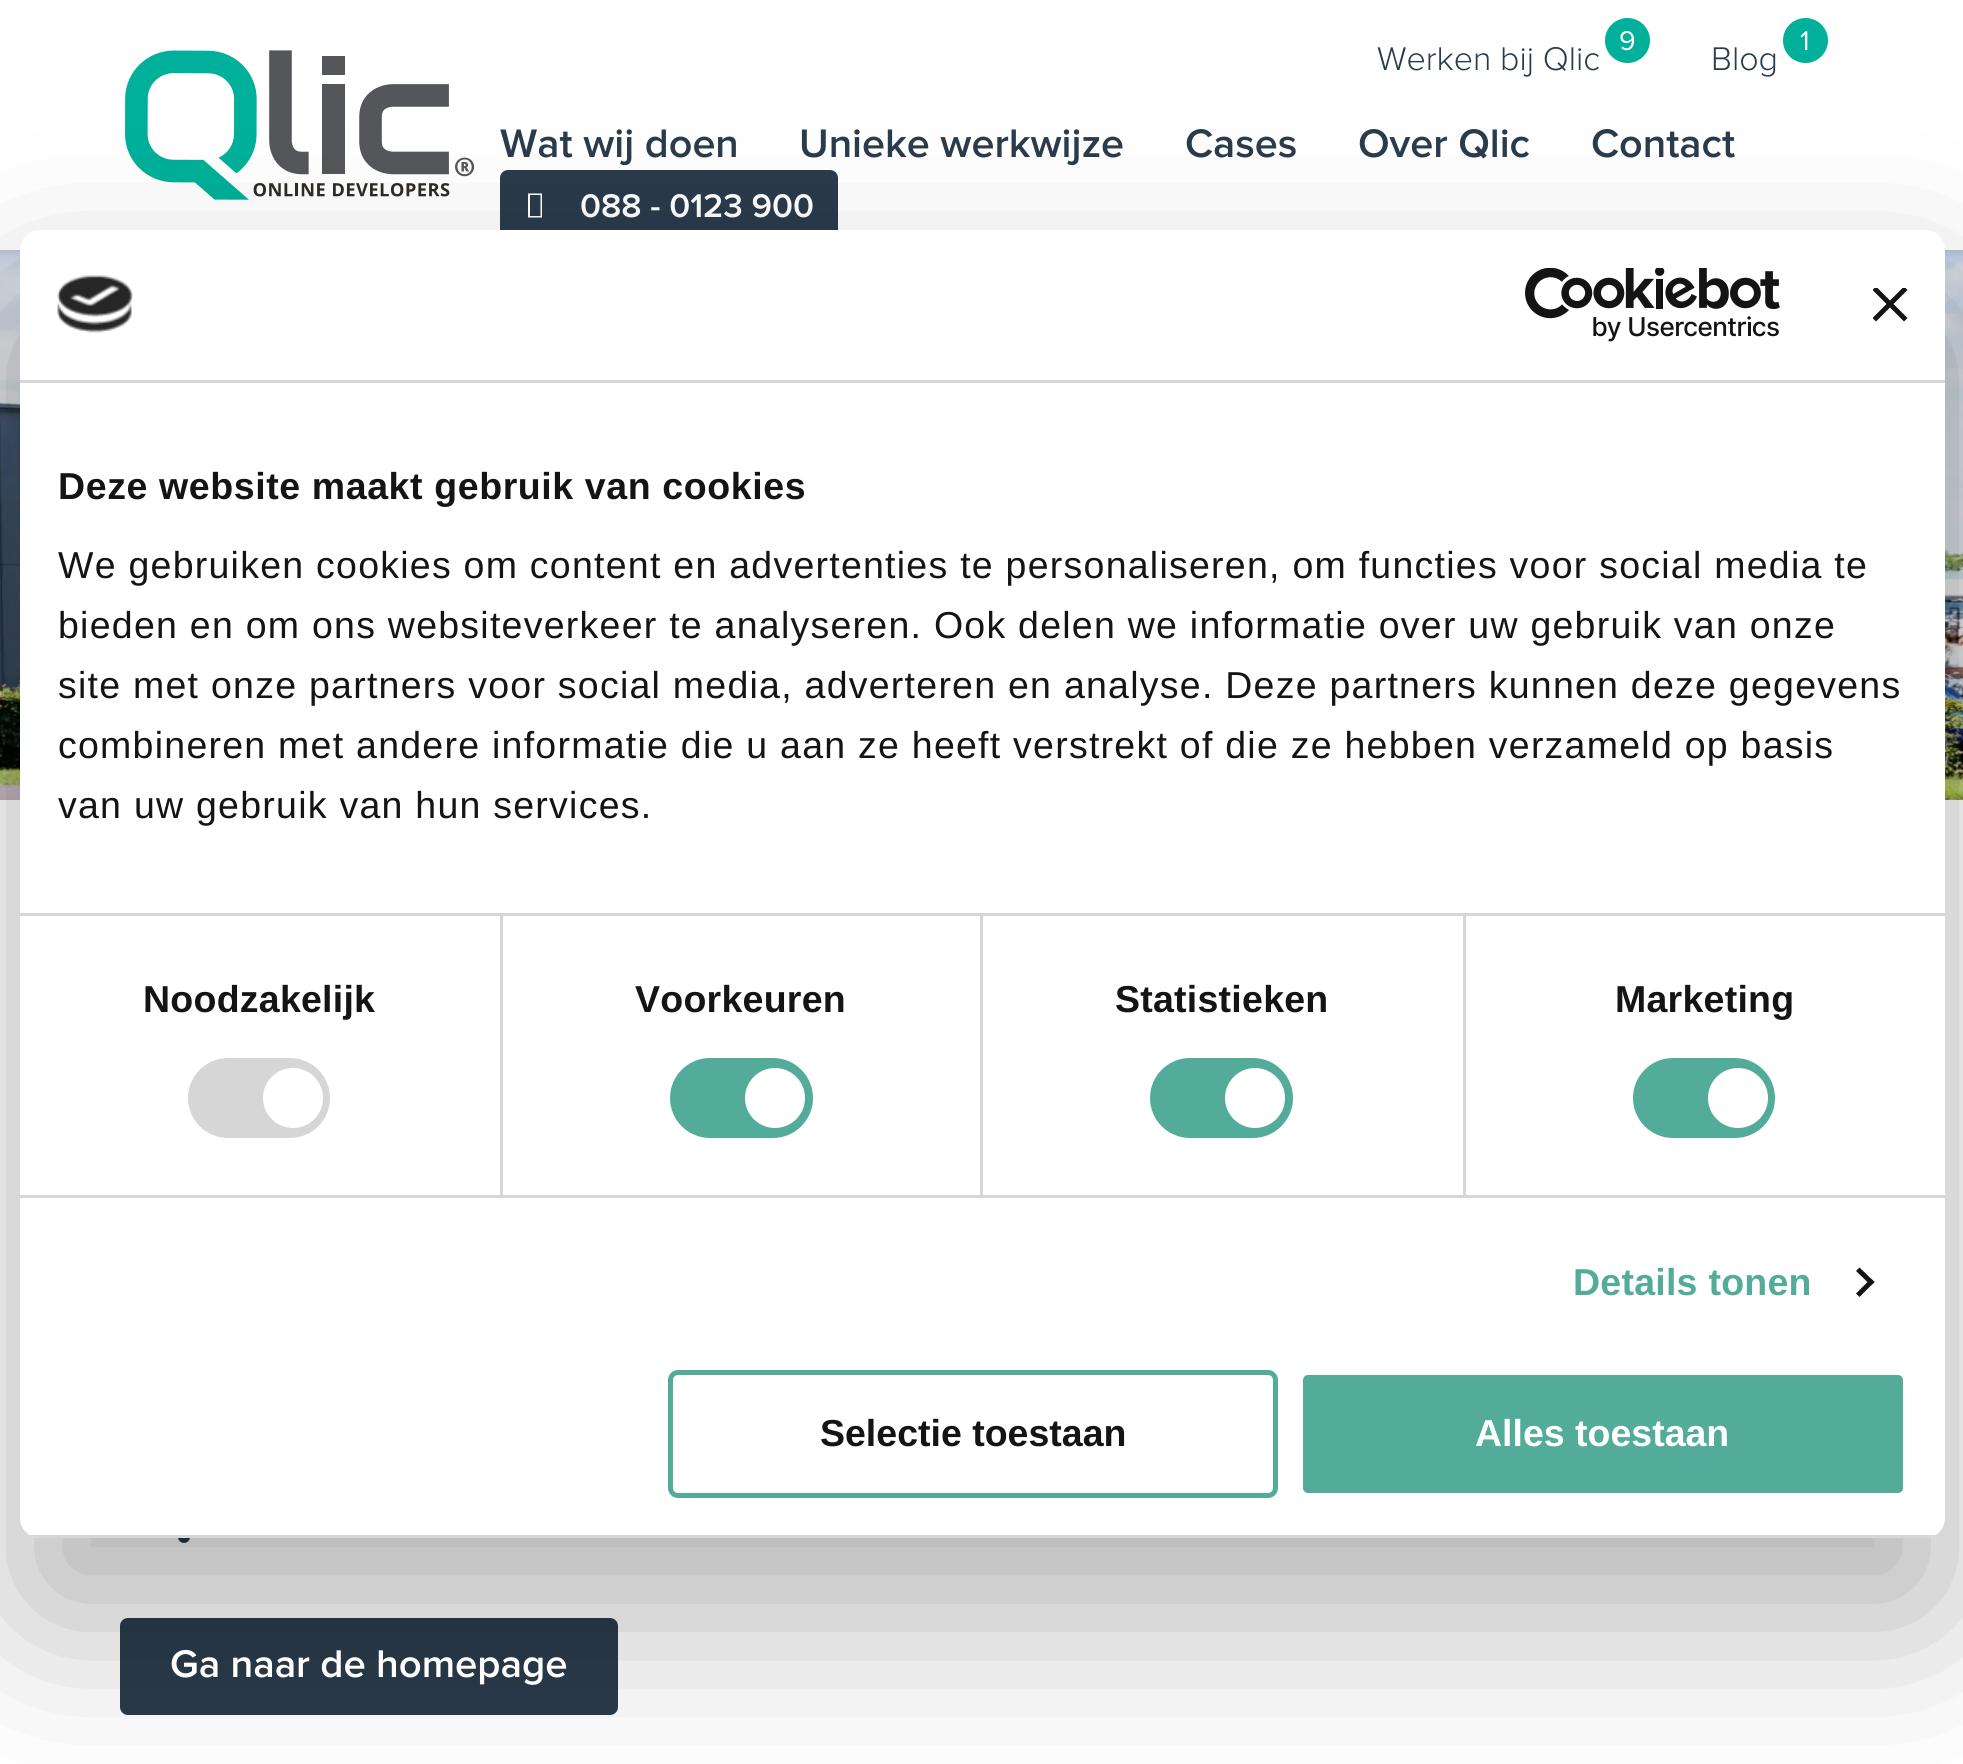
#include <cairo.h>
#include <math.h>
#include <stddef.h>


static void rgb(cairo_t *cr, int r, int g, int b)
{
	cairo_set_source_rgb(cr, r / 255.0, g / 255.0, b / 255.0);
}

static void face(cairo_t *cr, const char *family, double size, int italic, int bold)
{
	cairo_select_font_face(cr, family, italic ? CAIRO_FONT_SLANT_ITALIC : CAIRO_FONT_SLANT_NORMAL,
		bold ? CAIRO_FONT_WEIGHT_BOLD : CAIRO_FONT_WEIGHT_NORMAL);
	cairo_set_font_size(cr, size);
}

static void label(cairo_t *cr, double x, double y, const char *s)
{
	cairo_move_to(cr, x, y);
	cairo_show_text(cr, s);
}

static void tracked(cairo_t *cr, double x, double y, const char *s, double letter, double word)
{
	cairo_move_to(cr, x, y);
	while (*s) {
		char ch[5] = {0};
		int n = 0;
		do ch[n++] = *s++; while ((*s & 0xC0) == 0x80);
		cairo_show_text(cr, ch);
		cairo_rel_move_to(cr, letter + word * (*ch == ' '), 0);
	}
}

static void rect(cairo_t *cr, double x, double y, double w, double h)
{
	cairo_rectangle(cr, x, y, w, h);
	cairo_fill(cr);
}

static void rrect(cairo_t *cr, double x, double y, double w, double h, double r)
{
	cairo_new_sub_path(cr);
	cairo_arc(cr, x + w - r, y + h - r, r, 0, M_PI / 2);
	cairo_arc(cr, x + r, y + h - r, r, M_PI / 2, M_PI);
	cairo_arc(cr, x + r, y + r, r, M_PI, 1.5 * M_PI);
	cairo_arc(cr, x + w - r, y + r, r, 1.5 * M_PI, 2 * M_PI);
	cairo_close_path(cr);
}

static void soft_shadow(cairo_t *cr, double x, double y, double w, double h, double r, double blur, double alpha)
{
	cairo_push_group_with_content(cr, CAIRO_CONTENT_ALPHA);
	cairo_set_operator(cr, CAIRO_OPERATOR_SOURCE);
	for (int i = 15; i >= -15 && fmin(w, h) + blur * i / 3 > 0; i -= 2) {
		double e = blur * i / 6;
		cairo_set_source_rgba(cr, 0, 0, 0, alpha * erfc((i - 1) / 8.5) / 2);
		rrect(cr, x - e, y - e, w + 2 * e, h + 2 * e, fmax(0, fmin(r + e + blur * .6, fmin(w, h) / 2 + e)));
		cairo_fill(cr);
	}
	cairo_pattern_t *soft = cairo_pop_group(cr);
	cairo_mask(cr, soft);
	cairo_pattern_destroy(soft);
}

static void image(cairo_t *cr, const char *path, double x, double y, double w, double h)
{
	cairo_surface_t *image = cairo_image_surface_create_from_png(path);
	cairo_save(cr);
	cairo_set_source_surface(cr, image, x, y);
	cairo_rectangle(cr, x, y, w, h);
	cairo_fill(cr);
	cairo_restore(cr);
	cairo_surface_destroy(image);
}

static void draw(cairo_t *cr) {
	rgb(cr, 255, 255, 255);
	cairo_paint(cr);
	image(cr, "image1.png", 0, 250, 1963, 550);
	rgb(cr, 0, 0, 0);
	soft_shadow(cr, 0, 0, 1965, 250, 0, 5, 0.16);
	rgb(cr, 255, 255, 255);
	rect(cr, 0, 0, 1963, 250);
	image(cr, "image0.png", 125, 50, 350, 150);
	rgb(cr, 0, 176, 154);
	cairo_arc(cr, 1627.5, 40.5, 22.5, 0, 2 * M_PI);
	cairo_fill(cr);
	face(cr, "Proxima Nova", 28, 0, 0);
	rgb(cr, 255, 255, 255);
	label(cr, 1619, 50, "9");
	face(cr, "Proxima Nova Light", 34, 0, 0);
	rgb(cr, 42, 59, 76);
	label(cr, 1377, 70, "Werken bij Qlic");
	rgb(cr, 0, 176, 154);
	cairo_new_path(cr);
	cairo_arc(cr, 1805.5, 40.5, 22.5, 0, 2 * M_PI);
	cairo_fill(cr);
	face(cr, "Proxima Nova", 28, 0, 0);
	rgb(cr, 255, 255, 255);
	label(cr, 1800, 50, "1");
	face(cr, "Proxima Nova Light", 34, 0, 0);
	rgb(cr, 42, 59, 76);
	label(cr, 1711, 70, "Blog");
	face(cr, "Proxima Nova SemiBold", 41.25, 0, 0);
	label(cr, 500, 157, "Wat wij doen");
	label(cr, 799, 157, "Unieke werkwijze");
	label(cr, 1185, 157, "Cases");
	label(cr, 1358, 157, "Over Qlic");
	label(cr, 1591, 157, "Contact");
	rrect(cr, 500, 170, 338, 75, 8);
	cairo_fill(cr);
	rgb(cr, 255, 255, 255);
	cairo_new_path(cr);
	cairo_move_to(cr, 528, 217.5);
	cairo_line_to(cr, 528, 193.5);
	cairo_line_to(cr, 542, 193.5);
	cairo_line_to(cr, 542, 217.5);
	cairo_close_path(cr);
	cairo_move_to(cr, 530, 216);
	cairo_line_to(cr, 540.5, 216);
	cairo_line_to(cr, 540.5, 195);
	cairo_line_to(cr, 530, 195);
	cairo_close_path(cr);
	cairo_fill(cr);
	face(cr, "Proxima Nova SemiBold", 34, 0, 0);
	label(cr, 580, 217, "088 - 0123 900");
	rgb(cr, 42, 59, 76);
	rrect(cr, 178, 1530, 12, 13, 6);
	cairo_fill(cr);
	rrect(cr, 120, 1618, 498, 97, 8);
	cairo_fill(cr);
	rgb(cr, 0, 0, 0);
	soft_shadow(cr, 20, 310, 1925, 1308, 20, 85, 0.3);
	rgb(cr, 255, 255, 255);
	rrect(cr, 20, 230, 1925, 1308, 20);
	cairo_fill(cr);
	rgb(cr, 214, 214, 214);
	rect(cr, 20, 380, 1925, 3);
	image(cr, "image2.png", 57, 275, 76, 58);
	image(cr, "image3.png", 1525, 268, 255, 74);
	cairo_save(cr);
	cairo_rectangle(cr, 1873, 288, 35, 35);
	cairo_clip(cr);
	rgb(cr, 20, 20, 20);
	cairo_new_path(cr);
	cairo_move_to(cr, 1907.5, 290);
	cairo_line_to(cr, 1904, 286.5);
	cairo_line_to(cr, 1890, 300.5);
	cairo_line_to(cr, 1876, 286.5);
	cairo_line_to(cr, 1872.5, 290);
	cairo_line_to(cr, 1886.5, 304);
	cairo_line_to(cr, 1872.5, 318);
	cairo_line_to(cr, 1876, 321.5);
	cairo_line_to(cr, 1890, 307.5);
	cairo_line_to(cr, 1904, 321.5);
	cairo_line_to(cr, 1907.5, 318);
	cairo_line_to(cr, 1893.5, 304);
	cairo_close_path(cr);
	cairo_fill(cr);
	cairo_restore(cr);
	rect(cr, 500, 915, 3, 280);
	rect(cr, 980, 915, 3, 280);
	rect(cr, 1463, 915, 3, 280);
	rect(cr, 20, 913, 1925, 3);
	face(cr, "Liberation Sans", 37.5, 0, 1);
	rgb(cr, 20, 20, 20);
	tracked(cr, 58, 499, "Deze website maakt gebruik van cookies", 0.6, 0);
	face(cr, "Liberation Sans", 37.5, 0, 0);
	tracked(cr, 58, 578, "We gebruiken cookies om content en advertenties te personaliseren, om functies voor social media te", 1.25, 0);
	tracked(cr, 58, 638, "bieden en om ons websiteverkeer te analyseren. Ook delen we informatie over uw gebruik van onze", 1.25, 0);
	tracked(cr, 58, 698, "site met onze partners voor social media, adverteren en analyse. Deze partners kunnen deze gegevens", 1.25, 0);
	tracked(cr, 58, 758, "combineren met andere informatie die u aan ze heeft verstrekt of die ze hebben verzameld op basis", 1.25, 0);
	tracked(cr, 58, 818, "van uw gebruik van hun services.", 1.25, 0);
	rgb(cr, 214, 214, 214);
	rect(cr, 20, 1195, 1925, 3);
	face(cr, "Liberation Sans", 37.5, 0, 1);
	rgb(cr, 20, 20, 20);
	tracked(cr, 143, 1012, "Noodzakelijk", 0.25, 0);
	rgb(cr, 214, 214, 214);
	rrect(cr, 188, 1058, 142, 80, 40);
	cairo_fill(cr);
	rgb(cr, 255, 255, 255);
	cairo_arc(cr, 293, 1098, 30, 0, 2 * M_PI);
	cairo_fill(cr);
	rgb(cr, 20, 20, 20);
	tracked(cr, 635, 1012, "Voorkeuren", 0.25, 0);
	rgb(cr, 82, 172, 153);
	rrect(cr, 670, 1058, 143, 80, 40);
	cairo_fill(cr);
	rgb(cr, 255, 255, 255);
	cairo_arc(cr, 775, 1098, 30, 0, 2 * M_PI);
	cairo_fill(cr);
	rgb(cr, 20, 20, 20);
	tracked(cr, 1115, 1012, "Statistieken", 0.25, 0);
	rgb(cr, 82, 172, 153);
	rrect(cr, 1150, 1058, 143, 80, 40);
	cairo_fill(cr);
	rgb(cr, 255, 255, 255);
	cairo_arc(cr, 1255, 1098, 30, 0, 2 * M_PI);
	cairo_fill(cr);
	rgb(cr, 20, 20, 20);
	tracked(cr, 1615, 1012, "Marketing", 0.25, 0);
	rgb(cr, 82, 172, 153);
	rrect(cr, 1633, 1058, 142, 80, 40);
	cairo_fill(cr);
	rgb(cr, 255, 255, 255);
	cairo_arc(cr, 1738, 1098, 30, 0, 2 * M_PI);
	cairo_fill(cr);
	rgb(cr, 82, 172, 153);
	tracked(cr, 1573, 1295, "Details tonen", 0.25, 0);
	rgb(cr, 20, 20, 20);
	cairo_new_path(cr);
	cairo_move_to(cr, 1859.5, 1267.5);
	cairo_line_to(cr, 1874.5, 1282);
	cairo_line_to(cr, 1871, 1285.5);
	cairo_line_to(cr, 1856, 1271);
	cairo_close_path(cr);
	cairo_fill(cr);
	cairo_new_path(cr);
	cairo_move_to(cr, 1871, 1278.5);
	cairo_line_to(cr, 1874.5, 1282);
	cairo_line_to(cr, 1859.5, 1297);
	cairo_line_to(cr, 1856, 1293.5);
	cairo_close_path(cr);
	cairo_fill(cr);
	cairo_save(cr);
	rrect(cr, 20, 230, 1925, 1308, 20);
	cairo_clip(cr);
	rgb(cr, 214, 214, 214);
	rect(cr, 29, 1535, 1907, 3);
	cairo_restore(cr);
	rrect(cr, 670.5, 1372.5, 605, 123, 7.5);
	rgb(cr, 82, 172, 153);
	cairo_set_line_width(cr, 5);
	cairo_stroke(cr);
	rgb(cr, 20, 20, 20);
	label(cr, 820, 1446, "Selectie toestaan");
	rgb(cr, 82, 172, 153);
	rrect(cr, 1300.5, 1372.5, 605, 123, 7.5);
	cairo_fill_preserve(cr);
	rgb(cr, 255, 255, 255);
	cairo_stroke(cr);
	label(cr, 1475, 1446, "Alles toestaan");
	face(cr, "Proxima Nova SemiBold", 40, 0, 0);
	label(cr, 170, 1677, "Ga naar de homepage");
}

int main(void) {
	cairo_surface_t *surface = cairo_image_surface_create(CAIRO_FORMAT_RGB24, 1963, 1764);
	cairo_t *cr = cairo_create(surface);
	cairo_font_options_t *options = cairo_font_options_create();
	cairo_font_options_set_hint_metrics(options, CAIRO_HINT_METRICS_OFF);
	cairo_font_options_set_hint_style(options, CAIRO_HINT_STYLE_NONE);
	cairo_set_font_options(cr, options);
	cairo_set_miter_limit(cr, 4);
	draw(cr);
	cairo_surface_write_to_png(surface, "render.png");
	cairo_font_options_destroy(options);
	cairo_destroy(cr);
	cairo_surface_destroy(surface);
	return 0;
}
